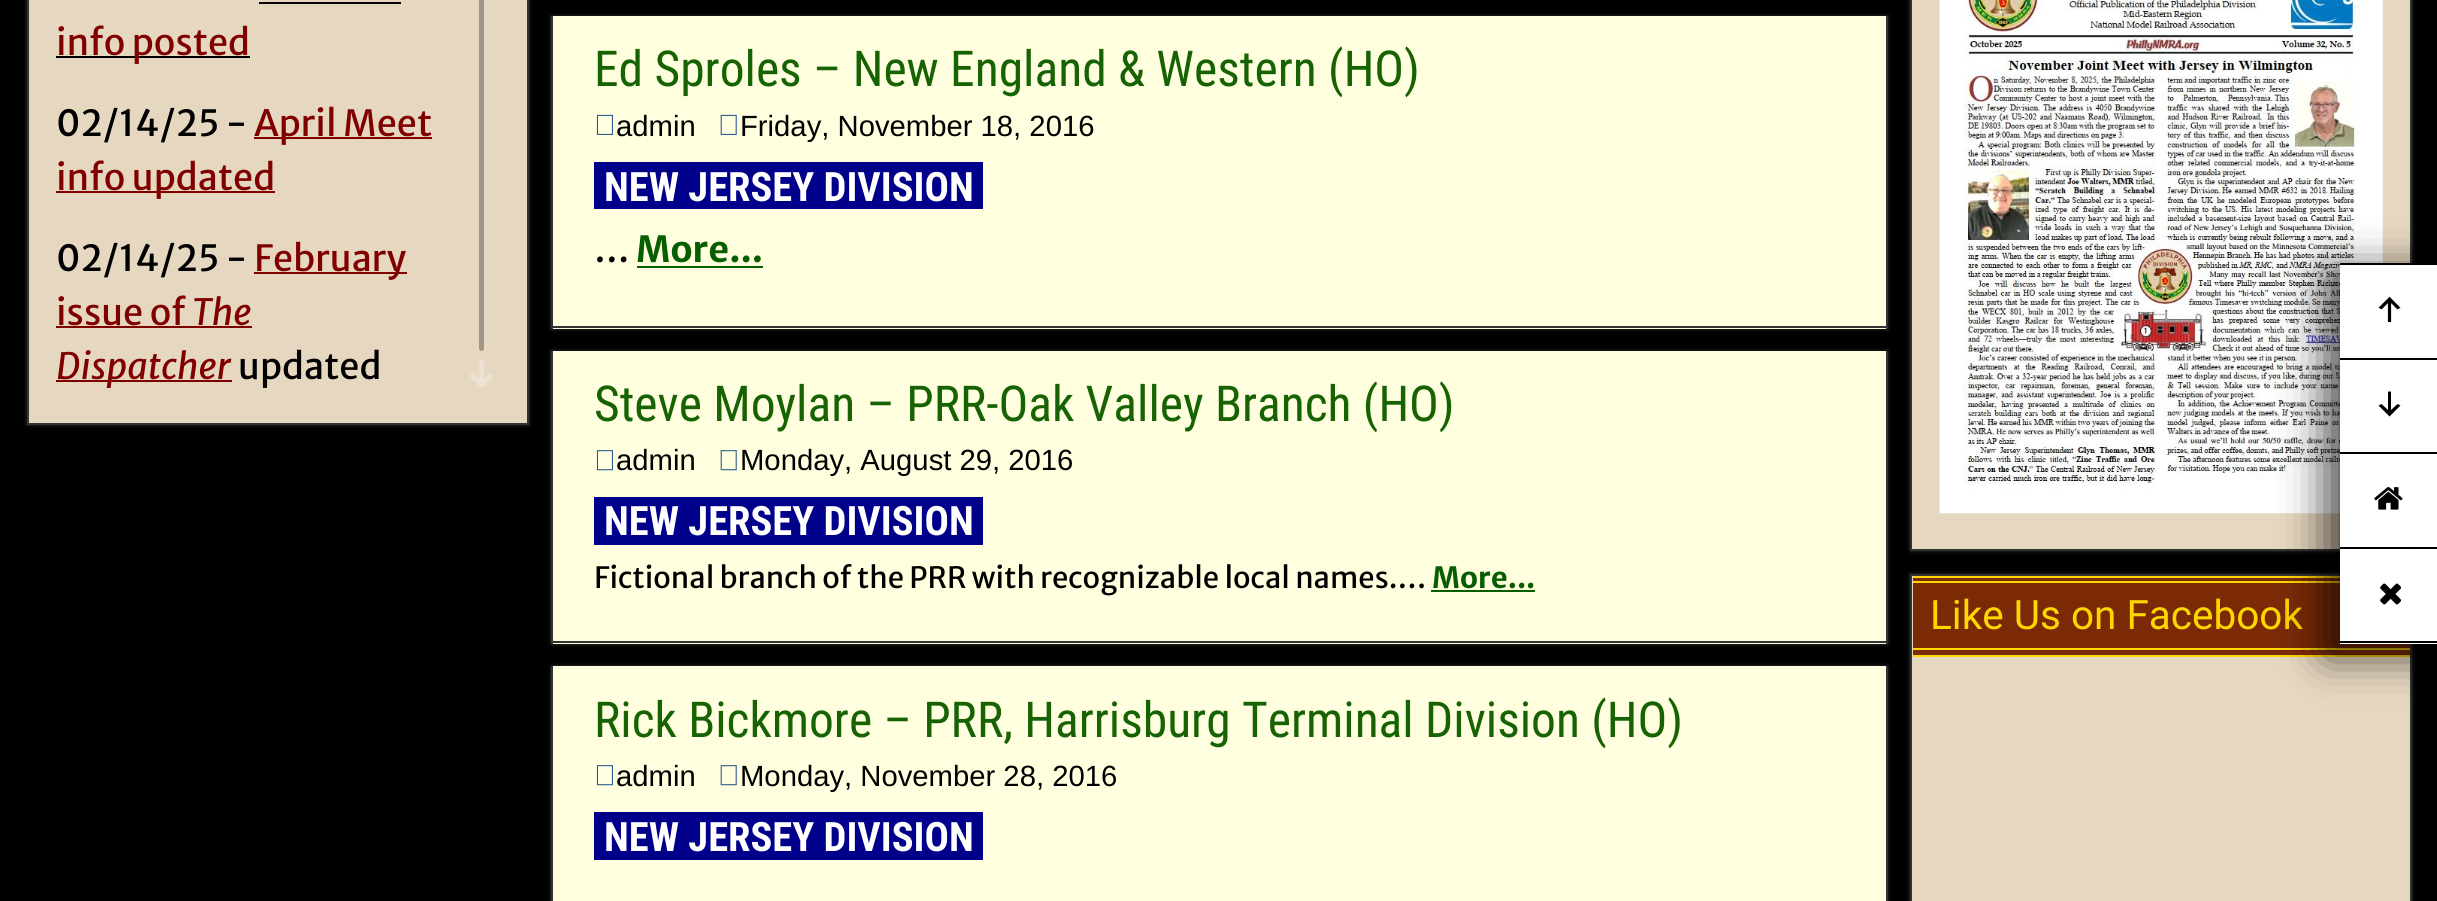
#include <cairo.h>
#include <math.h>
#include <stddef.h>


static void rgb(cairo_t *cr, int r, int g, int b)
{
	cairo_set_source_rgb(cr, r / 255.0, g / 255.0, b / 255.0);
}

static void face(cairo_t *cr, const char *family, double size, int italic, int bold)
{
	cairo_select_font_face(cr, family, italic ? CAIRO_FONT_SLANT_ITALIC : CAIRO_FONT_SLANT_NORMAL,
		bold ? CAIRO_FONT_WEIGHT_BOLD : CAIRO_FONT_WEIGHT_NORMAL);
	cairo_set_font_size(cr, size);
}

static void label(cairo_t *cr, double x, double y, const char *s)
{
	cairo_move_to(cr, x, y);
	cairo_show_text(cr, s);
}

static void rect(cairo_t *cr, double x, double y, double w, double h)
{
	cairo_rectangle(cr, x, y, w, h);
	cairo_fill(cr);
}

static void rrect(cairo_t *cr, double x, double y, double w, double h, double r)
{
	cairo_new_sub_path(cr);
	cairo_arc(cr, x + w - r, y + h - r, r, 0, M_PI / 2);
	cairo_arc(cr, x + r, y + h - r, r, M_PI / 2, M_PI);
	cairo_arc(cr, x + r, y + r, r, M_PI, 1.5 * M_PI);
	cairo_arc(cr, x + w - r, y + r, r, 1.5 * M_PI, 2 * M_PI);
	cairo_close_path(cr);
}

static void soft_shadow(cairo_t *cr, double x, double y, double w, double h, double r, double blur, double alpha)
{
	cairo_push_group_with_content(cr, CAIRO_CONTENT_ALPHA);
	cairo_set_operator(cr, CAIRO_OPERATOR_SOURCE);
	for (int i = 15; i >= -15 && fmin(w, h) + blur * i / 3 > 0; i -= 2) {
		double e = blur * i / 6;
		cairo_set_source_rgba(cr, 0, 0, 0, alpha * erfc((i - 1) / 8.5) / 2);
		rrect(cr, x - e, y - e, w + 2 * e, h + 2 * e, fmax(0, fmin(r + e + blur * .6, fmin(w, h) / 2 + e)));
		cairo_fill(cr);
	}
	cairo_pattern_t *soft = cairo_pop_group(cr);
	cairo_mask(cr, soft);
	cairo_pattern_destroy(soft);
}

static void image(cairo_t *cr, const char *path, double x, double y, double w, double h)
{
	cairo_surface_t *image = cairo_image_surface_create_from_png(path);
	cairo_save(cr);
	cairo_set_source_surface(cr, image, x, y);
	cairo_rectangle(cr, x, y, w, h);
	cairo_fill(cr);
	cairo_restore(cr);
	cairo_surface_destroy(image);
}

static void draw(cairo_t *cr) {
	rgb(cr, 0, 0, 0);
	cairo_paint(cr);
	rgb(cr, 51, 51, 51);
	soft_shadow(cr, 27, -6, 502, 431, 0, 2, 1);
	rgb(cr, 230, 215, 192);
	cairo_rectangle(cr, 28, -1, 500, 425);
	cairo_fill_preserve(cr);
	rgb(cr, 51, 51, 51);
	cairo_stroke(cr);
	rgb(cr, 0, 0, 0);
	rect(cr, 56, 56, 194, 2);
	face(cr, "Merriweather Sans", 36, 0, 0);
	rgb(cr, 128, 0, 0);
	label(cr, 56, 55, "info posted");
	rgb(cr, 0, 0, 0);
	rect(cr, 259, 2, 142, 2);
	label(cr, 56, 136, "02/14/25 -");
	rgb(cr, 128, 0, 0);
	rect(cr, 254, 137, 178, 2);
	label(cr, 254, 136, "April Meet");
	rect(cr, 56, 191, 219, 2);
	label(cr, 56, 190, "info updated");
	rgb(cr, 0, 0, 0);
	label(cr, 56, 271, "02/14/25 -");
	rgb(cr, 128, 0, 0);
	rect(cr, 254, 272, 153, 2);
	label(cr, 254, 271, "February");
	label(cr, 56, 325, "issue of");
	face(cr, "Merriweather Sans", 36, 1, 0);
	label(cr, 192, 325, "The");
	rect(cr, 56, 326, 196, 2);
	rect(cr, 56, 380, 176, 2);
	label(cr, 56, 379, "Dispatcher");
	face(cr, "Merriweather Sans", 36, 0, 0);
	rgb(cr, 0, 0, 0);
	label(cr, 238, 379, "updated");
	rgb(cr, 161, 151, 134);
	rrect(cr, 479, -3, 5, 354, 2.5);
	cairo_fill(cr);
	image(cr, "image0.png", 470, 360, 23, 28);
	rgb(cr, 51, 51, 51);
	soft_shadow(cr, 551, 16, 1337, 313, 0, 2, 1);
	rgb(cr, 255, 255, 224);
	rect(cr, 553, 16, 1333, 313);
	rgb(cr, 51, 51, 51);
	rect(cr, 1886, 16, 2, 313);
	rect(cr, 551, 326, 1337, 2);
	rect(cr, 551, 16, 2, 313);
	face(cr, "Roboto Condensed", 49.5, 0, 0);
	rgb(cr, 23, 99, 4);
	label(cr, 594, 86, "Ed Sproles – New England & Western (HO)");
	image(cr, "image1.png", 596, 114, 17, 21);
	face(cr, "Liberation Sans", 29.25, 0, 0);
	rgb(cr, 0, 0, 0);
	label(cr, 616, 136, "admin");
	image(cr, "image2.png", 720, 114, 17, 21);
	label(cr, 740, 136, "Friday, November 18, 2016");
	rgb(cr, 0, 0, 139);
	rect(cr, 594, 162, 389, 47);
	face(cr, "Roboto Condensed", 40.5, 0, 1);
	rgb(cr, 255, 255, 255);
	label(cr, 604, 201, "NEW JERSEY DIVISION");
	face(cr, "Merriweather Sans", 36, 0, 0);
	rgb(cr, 0, 0, 0);
	label(cr, 594, 262, "…");
	face(cr, "Merriweather Sans", 36, 0, 1);
	rgb(cr, 6, 94, 0);
	label(cr, 636, 262, "More...");
	rect(cr, 637, 266, 126, 2);
	rgb(cr, 51, 51, 51);
	soft_shadow(cr, 551, 351, 1337, 293, 0, 2, 1);
	rgb(cr, 255, 255, 224);
	rect(cr, 553, 351, 1333, 293);
	rgb(cr, 51, 51, 51);
	rect(cr, 1886, 351, 2, 293);
	rect(cr, 551, 641, 1337, 2);
	rect(cr, 551, 351, 2, 293);
	face(cr, "Roboto Condensed", 49.5, 0, 0);
	rgb(cr, 23, 99, 4);
	label(cr, 594, 421, "Steve Moylan – PRR-Oak Valley Branch (HO)");
	image(cr, "image3.png", 596, 450, 17, 21);
	face(cr, "Liberation Sans", 29.25, 0, 0);
	rgb(cr, 0, 0, 0);
	label(cr, 616, 470, "admin");
	image(cr, "image4.png", 720, 450, 17, 21);
	label(cr, 740, 470, "Monday, August 29, 2016");
	rgb(cr, 0, 0, 139);
	rect(cr, 594, 497, 389, 48);
	face(cr, "Roboto Condensed", 40.5, 0, 1);
	rgb(cr, 255, 255, 255);
	label(cr, 604, 535, "NEW JERSEY DIVISION");
	face(cr, "Merriweather Sans", 29.25, 0, 0);
	rgb(cr, 0, 0, 0);
	label(cr, 594, 588, "Fictional branch of the PRR with recognizable local names.…");
	face(cr, "Merriweather Sans", 29.25, 0, 1);
	rgb(cr, 6, 94, 0);
	label(cr, 1432, 588, "More...");
	rect(cr, 1431, 590, 104, 2);
	rgb(cr, 51, 51, 51);
	soft_shadow(cr, 551, 666, 1337, 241, 0, 2, 1);
	rgb(cr, 255, 255, 224);
	rect(cr, 553, 666, 1333, 235);
	rgb(cr, 51, 51, 51);
	rect(cr, 1886, 666, 2, 235);
	rect(cr, 551, 666, 2, 235);
	face(cr, "Roboto Condensed", 49.5, 0, 0);
	rgb(cr, 23, 99, 4);
	label(cr, 594, 737, "Rick Bickmore – PRR, Harrisburg Terminal Division (HO)");
	image(cr, "image3.png", 596, 765, 17, 21);
	face(cr, "Liberation Sans", 29.25, 0, 0);
	rgb(cr, 0, 0, 0);
	label(cr, 616, 786, "admin");
	image(cr, "image4.png", 720, 765, 17, 21);
	label(cr, 740, 786, "Monday, November 28, 2016");
	rgb(cr, 0, 0, 139);
	rect(cr, 594, 812, 389, 48);
	face(cr, "Roboto Condensed", 40.5, 0, 1);
	rgb(cr, 255, 255, 255);
	label(cr, 604, 851, "NEW JERSEY DIVISION");
	rgb(cr, 51, 51, 51);
	soft_shadow(cr, 1910, -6, 502, 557, 0, 2, 1);
	rgb(cr, 230, 215, 192);
	cairo_rectangle(cr, 1911, -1, 500, 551);
	cairo_fill_preserve(cr);
	rgb(cr, 51, 51, 51);
	cairo_stroke(cr);
	image(cr, "image5.png", 1939, 0, 444, 514);
	rgb(cr, 51, 51, 51);
	soft_shadow(cr, 1910, 574, 502, 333, 0, 2, 1);
	rgb(cr, 230, 215, 192);
	cairo_rectangle(cr, 1911, 575, 500, 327);
	cairo_fill_preserve(cr);
	rgb(cr, 51, 51, 51);
	cairo_stroke(cr);
	rgb(cr, 124, 42, 6);
	rect(cr, 1913, 578, 497, 77);
	rgb(cr, 255, 215, 0);
	rect(cr, 1913, 576, 427, 2);
	rect(cr, 1913, 581, 427, 2);
	rect(cr, 1913, 648, 497, 2);
	rect(cr, 1913, 655, 497, 2);
	face(cr, "Roboto", 40.5, 0, 0);
	label(cr, 1930, 629, "Like Us on Facebook");
	rgb(cr, 0, 0, 0);
	soft_shadow(cr, 2327, 272, 99, 381, 0, 22.5, 0.75);
	rgb(cr, 255, 255, 255);
	rect(cr, 2340, 265, 97, 93);
	rgb(cr, 0, 0, 0);
	rect(cr, 2340, 263, 75, 2);
	rect(cr, 2340, 358, 74, 2);
	image(cr, "image6.png", 2378, 296, 23, 26);
	rgb(cr, 255, 255, 255);
	rect(cr, 2340, 360, 97, 187);
	rgb(cr, 0, 0, 0);
	rect(cr, 2340, 452, 97, 2);
	cairo_new_path(cr);
	cairo_move_to(cr, 2388, 391.5);
	cairo_line_to(cr, 2391, 391.5);
	cairo_line_to(cr, 2391, 410);
	cairo_line_to(cr, 2397.5, 404);
	cairo_line_to(cr, 2400.5, 405.5);
	cairo_line_to(cr, 2389.5, 416.5);
	cairo_line_to(cr, 2378.5, 405.5);
	cairo_line_to(cr, 2381.5, 404);
	cairo_line_to(cr, 2388, 410);
	cairo_close_path(cr);
	cairo_fill(cr);
	image(cr, "image7.png", 2374, 487, 29, 23);
	rgb(cr, 255, 255, 255);
	rect(cr, 2340, 549, 97, 95);
	rgb(cr, 0, 0, 0);
	rect(cr, 2340, 547, 74, 2);
	rect(cr, 2340, 641, 97, 2);
	image(cr, "image8.png", 2380, 583, 22, 22);
}

int main(void) {
	cairo_surface_t *surface = cairo_image_surface_create(CAIRO_FORMAT_RGB24, 2437, 901);
	cairo_t *cr = cairo_create(surface);
	cairo_font_options_t *options = cairo_font_options_create();
	cairo_font_options_set_hint_metrics(options, CAIRO_HINT_METRICS_OFF);
	cairo_font_options_set_hint_style(options, CAIRO_HINT_STYLE_NONE);
	cairo_set_font_options(cr, options);
	cairo_set_miter_limit(cr, 4);
	draw(cr);
	cairo_surface_write_to_png(surface, "render.png");
	cairo_font_options_destroy(options);
	cairo_destroy(cr);
	cairo_surface_destroy(surface);
	return 0;
}
